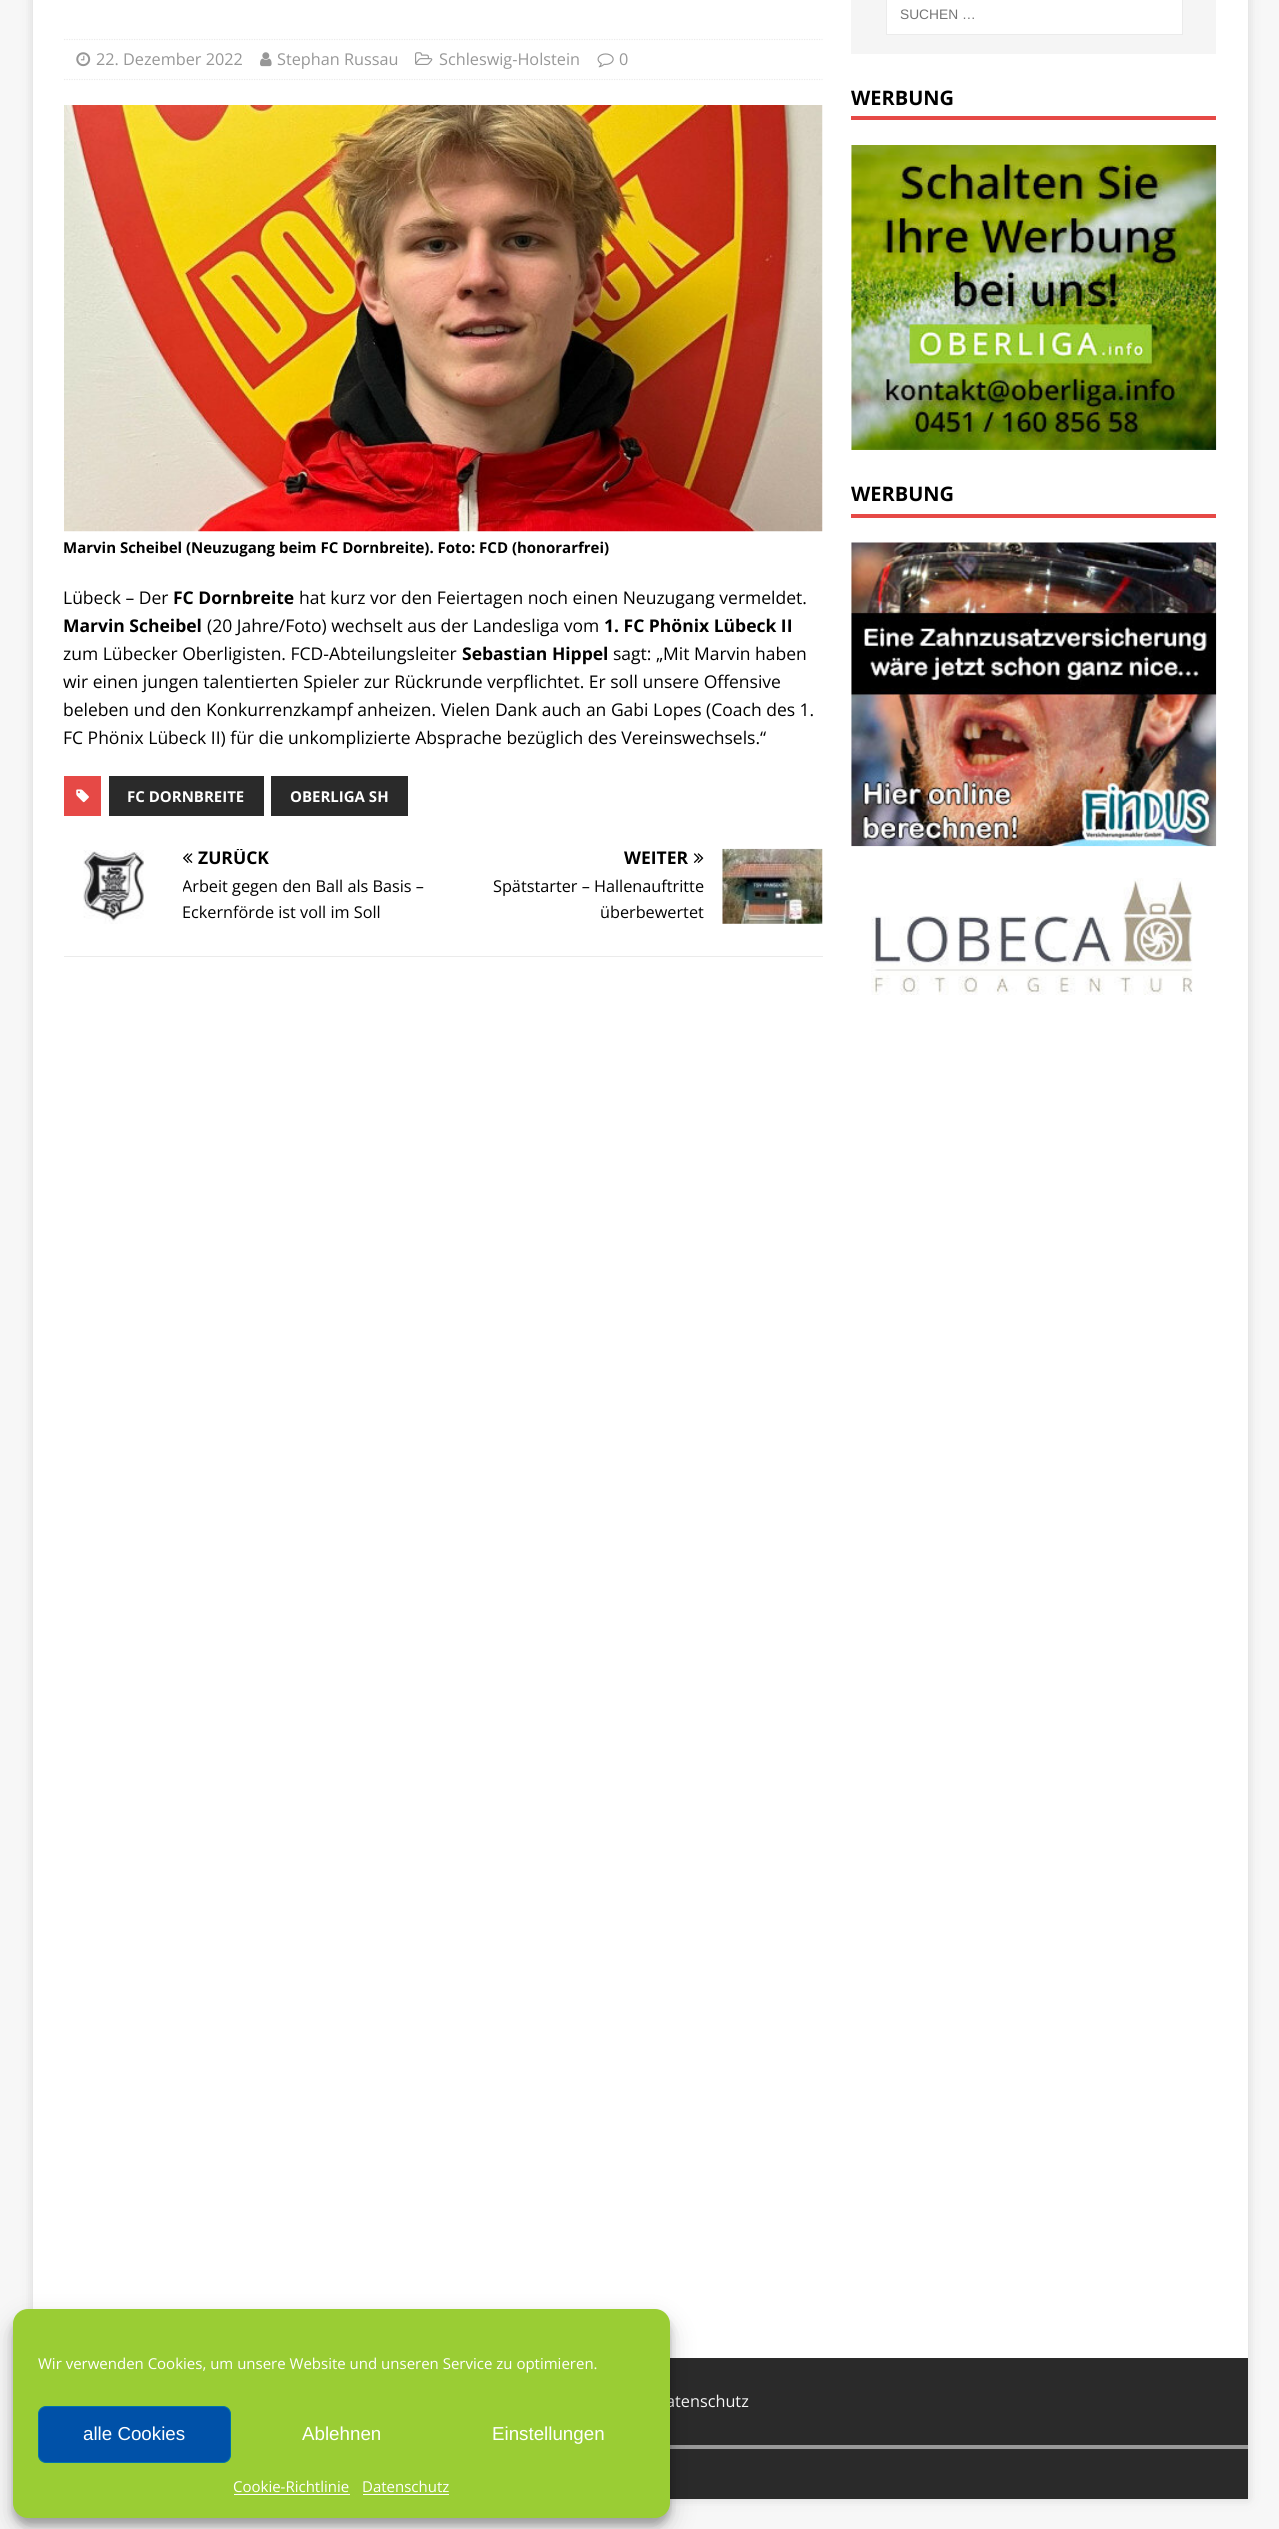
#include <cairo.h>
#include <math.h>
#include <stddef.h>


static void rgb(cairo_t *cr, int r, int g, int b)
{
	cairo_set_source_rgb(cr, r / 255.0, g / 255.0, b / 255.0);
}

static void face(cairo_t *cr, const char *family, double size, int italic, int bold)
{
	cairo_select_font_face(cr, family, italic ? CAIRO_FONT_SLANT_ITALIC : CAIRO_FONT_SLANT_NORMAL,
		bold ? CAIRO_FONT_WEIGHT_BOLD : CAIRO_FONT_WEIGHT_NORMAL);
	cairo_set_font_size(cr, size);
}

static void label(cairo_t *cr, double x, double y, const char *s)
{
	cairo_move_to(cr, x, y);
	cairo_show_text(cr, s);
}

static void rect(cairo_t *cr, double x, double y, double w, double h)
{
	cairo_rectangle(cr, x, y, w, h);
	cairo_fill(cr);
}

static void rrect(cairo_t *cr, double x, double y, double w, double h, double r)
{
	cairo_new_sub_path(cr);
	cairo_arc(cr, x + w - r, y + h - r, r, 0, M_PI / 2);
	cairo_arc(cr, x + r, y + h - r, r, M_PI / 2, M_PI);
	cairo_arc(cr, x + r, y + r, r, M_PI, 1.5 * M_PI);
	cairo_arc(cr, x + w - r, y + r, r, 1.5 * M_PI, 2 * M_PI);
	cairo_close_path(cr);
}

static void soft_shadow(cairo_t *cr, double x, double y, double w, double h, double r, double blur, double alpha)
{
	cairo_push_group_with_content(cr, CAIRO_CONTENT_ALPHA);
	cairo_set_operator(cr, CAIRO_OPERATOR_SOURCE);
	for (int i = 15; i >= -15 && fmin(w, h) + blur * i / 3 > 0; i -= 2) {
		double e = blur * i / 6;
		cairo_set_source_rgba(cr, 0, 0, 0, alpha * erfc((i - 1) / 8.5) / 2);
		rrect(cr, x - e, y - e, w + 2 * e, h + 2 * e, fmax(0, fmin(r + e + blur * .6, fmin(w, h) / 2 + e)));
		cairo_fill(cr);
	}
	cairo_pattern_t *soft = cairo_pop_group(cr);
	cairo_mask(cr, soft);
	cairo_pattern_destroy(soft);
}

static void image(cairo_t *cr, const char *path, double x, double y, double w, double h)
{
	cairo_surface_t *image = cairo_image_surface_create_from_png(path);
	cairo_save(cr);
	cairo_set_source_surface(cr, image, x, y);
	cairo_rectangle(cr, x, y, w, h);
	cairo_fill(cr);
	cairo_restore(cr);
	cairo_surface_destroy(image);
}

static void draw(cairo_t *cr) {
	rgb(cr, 247, 247, 247);
	cairo_paint(cr);
	rgb(cr, 50, 50, 50);
	soft_shadow(cr, 33, -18, 1215, 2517, 0, 6, 0.17);
	rgb(cr, 255, 255, 255);
	rect(cr, 33, 0, 1215, 2358);
	cairo_new_path(cr);
	cairo_move_to(cr, 64, 39.5);
	cairo_line_to(cr, 822.5, 39.5);
	rgb(cr, 235, 235, 235);
	cairo_set_line_width(cr, 1.2);
	cairo_set_dash(cr, (double[]){1.25, 1.25}, 2, 0);
	cairo_stroke(cr);
	cairo_new_path(cr);
	cairo_move_to(cr, 64, 79.5);
	cairo_line_to(cr, 822.5, 79.5);
	cairo_stroke(cr);
	image(cr, "image0.png", 76, 52, 15, 15);
	face(cr, "Open Sans", 16.25, 0, 0);
	rgb(cr, 151, 151, 151);
	label(cr, 96, 65, "22. Dezember 2022");
	image(cr, "image1.png", 260, 52, 12, 15);
	label(cr, 277, 65, "Stephan Russau");
	image(cr, "image2.png", 415, 52, 18, 13);
	label(cr, 439, 65, "Schleswig-Holstein");
	image(cr, "image3.png", 597, 53, 17, 15);
	label(cr, 619, 65, "0");
	image(cr, "image4.png", 64, 105, 759, 427);
	face(cr, "Open Sans", 15, 0, 1);
	rgb(cr, 0, 0, 0);
	label(cr, 63, 553, "Marvin Scheibel (Neuzugang beim FC Dornbreite). Foto: FCD (honorarfrei)");
	face(cr, "Open Sans", 17.5, 0, 0);
	label(cr, 63, 604, "Lübeck – Der");
	face(cr, "Open Sans", 17.5, 0, 1);
	label(cr, 173, 604, "FC Dornbreite");
	face(cr, "Open Sans", 17.5, 0, 0);
	label(cr, 299, 604, "hat kurz vor den Feiertagen noch einen Neuzugang vermeldet.");
	face(cr, "Open Sans", 17.5, 0, 1);
	label(cr, 63, 632, "Marvin Scheibel");
	face(cr, "Open Sans", 17.5, 0, 0);
	label(cr, 207, 632, "(20 Jahre/Foto) wechselt aus der Landesliga vom");
	face(cr, "Open Sans", 17.5, 0, 1);
	label(cr, 604, 632, "1. FC Phönix Lübeck II");
	face(cr, "Open Sans", 17.5, 0, 0);
	label(cr, 63, 660, "zum Lübecker Oberligisten. FCD-Abteilungsleiter");
	face(cr, "Open Sans", 17.5, 0, 1);
	label(cr, 462, 660, "Sebastian Hippel");
	face(cr, "Open Sans", 17.5, 0, 0);
	label(cr, 613, 660, "sagt: „Mit Marvin haben");
	label(cr, 63, 688, "wir einen jungen talentierten Spieler zur Rückrunde verpflichtet. Er soll unsere Offensive");
	label(cr, 63, 716, "beleben und den Konkurrenzkampf anheizen. Vielen Dank auch an Gabi Lopes (Coach des 1.");
	label(cr, 63, 744, "FC Phönix Lübeck II) für die unkomplizierte Absprache bezüglich des Vereinswechsels.“");
	rgb(cr, 230, 73, 70);
	rect(cr, 64, 776, 37, 40);
	image(cr, "image5.png", 76, 789, 13, 14);
	rgb(cr, 42, 42, 42);
	rect(cr, 109, 776, 155, 40);
	face(cr, "Open Sans", 15, 0, 1);
	rgb(cr, 255, 255, 255);
	label(cr, 127, 802, "FC DORNBREITE");
	rgb(cr, 42, 42, 42);
	rect(cr, 271, 776, 137, 40);
	rgb(cr, 255, 255, 255);
	label(cr, 290, 802, "OBERLIGA SH");
	rgb(cr, 235, 235, 235);
	rect(cr, 64, 956, 759, 1);
	image(cr, "image6.png", 83, 850, 61, 74);
	image(cr, "image7.png", 183, 853, 10, 10);
	cairo_save(cr);
	cairo_rectangle(cr, 183, 849, 251, 17);
	cairo_clip(cr);
	face(cr, "Open Sans", 17.5, 0, 1);
	rgb(cr, 0, 0, 0);
	label(cr, 198, 864, "ZURÜCK");
	cairo_restore(cr);
	cairo_save(cr);
	cairo_rectangle(cr, 183, 873, 251, 52);
	cairo_clip(cr);
	face(cr, "Open Sans", 16.25, 0, 0);
	rgb(cr, 0, 0, 0);
	label(cr, 182, 892, "Arbeit gegen den Ball als Basis –");
	cairo_restore(cr);
	face(cr, "Open Sans", 16.25, 0, 0);
	rgb(cr, 0, 0, 0);
	label(cr, 182, 918, "Eckernförde ist voll im Soll");
	face(cr, "Open Sans", 17.5, 0, 1);
	label(cr, 624, 864, "WEITER");
	image(cr, "image8.png", 693, 853, 11, 10);
	image(cr, "image9.png", 722, 848, 101, 76);
	face(cr, "Open Sans", 16.25, 0, 0);
	label(cr, 493, 892, "Spätstarter – Hallenauftritte");
	label(cr, 600, 918, "überbewertet");
	rgb(cr, 245, 245, 245);
	rect(cr, 851, 0, 365, 54);
	rgb(cr, 255, 255, 255);
	cairo_rectangle(cr, 886.5, -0.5, 296, 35);
	cairo_fill_preserve(cr);
	rgb(cr, 235, 235, 235);
	cairo_set_line_width(cr, 1);
	cairo_set_dash(cr, NULL, 0, 0);
	cairo_stroke(cr);
	face(cr, "Liberation Sans", 13.75, 0, 0);
	rgb(cr, 117, 117, 117);
	label(cr, 900, 19, "SUCHEN …");
	rgb(cr, 230, 73, 70);
	rect(cr, 851, 116, 365, 4);
	face(cr, "Open Sans", 20, 0, 1);
	rgb(cr, 0, 0, 0);
	label(cr, 851, 105, "WERBUNG");
	image(cr, "image10.png", 851, 145, 366, 305);
	rgb(cr, 230, 73, 70);
	rect(cr, 851, 514, 365, 4);
	rgb(cr, 0, 0, 0);
	label(cr, 851, 501, "WERBUNG");
	image(cr, "image11.png", 851, 542, 366, 305);
	image(cr, "image12.png", 871, 878, 322, 117);
	rgb(cr, 42, 42, 42);
	rect(cr, 670, 2358, 578, 87);
	face(cr, "Open Sans", 16.25, 0, 0);
	rgb(cr, 247, 247, 247);
	label(cr, 666, 2407, "atenschutz");
	rgb(cr, 42, 42, 42);
	rect(cr, 670, 2449, 578, 50);
	rgb(cr, 153, 153, 153);
	rect(cr, 670, 2445, 578, 4);
	rgb(cr, 0, 0, 0);
	soft_shadow(cr, 13, 2316, 657, 209, 15, 4, 0.23);
	soft_shadow(cr, 13, 2321, 657, 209, 15, 12.5, 0.19);
	rgb(cr, 154, 205, 52);
	rrect(cr, 13, 2309, 657, 209, 15);
	cairo_fill(cr);
	face(cr, "Open Sans", 15, 0, 0);
	rgb(cr, 255, 255, 255);
	label(cr, 38, 2369, "Wir verwenden Cookies, um unsere Website und unseren Service zu optimieren.");
	rgb(cr, 0, 81, 168);
	rrect(cr, 38.5, 2406.5, 192, 56, 7.5);
	cairo_fill_preserve(cr);
	rgb(cr, 0, 115, 170);
	cairo_stroke(cr);
	face(cr, "Liberation Sans", 18.75, 0, 0);
	rgb(cr, 255, 255, 255);
	label(cr, 83, 2440, "alle Cookies");
	label(cr, 302, 2440, "Ablehnen");
	label(cr, 492, 2440, "Einstellungen");
	face(cr, "Open Sans", 15, 0, 0);
	label(cr, 233, 2492, "Cookie-Richtlinie");
	rect(cr, 234, 2494, 116, 1);
	label(cr, 362, 2492, "Datenschutz");
	rect(cr, 363, 2494, 86, 1);
}

int main(void) {
	cairo_surface_t *surface = cairo_image_surface_create(CAIRO_FORMAT_RGB24, 1279, 2529);
	cairo_t *cr = cairo_create(surface);
	cairo_font_options_t *options = cairo_font_options_create();
	cairo_font_options_set_hint_metrics(options, CAIRO_HINT_METRICS_OFF);
	cairo_font_options_set_hint_style(options, CAIRO_HINT_STYLE_NONE);
	cairo_set_font_options(cr, options);
	cairo_set_miter_limit(cr, 4);
	draw(cr);
	cairo_surface_write_to_png(surface, "render.png");
	cairo_font_options_destroy(options);
	cairo_destroy(cr);
	cairo_surface_destroy(surface);
	return 0;
}
